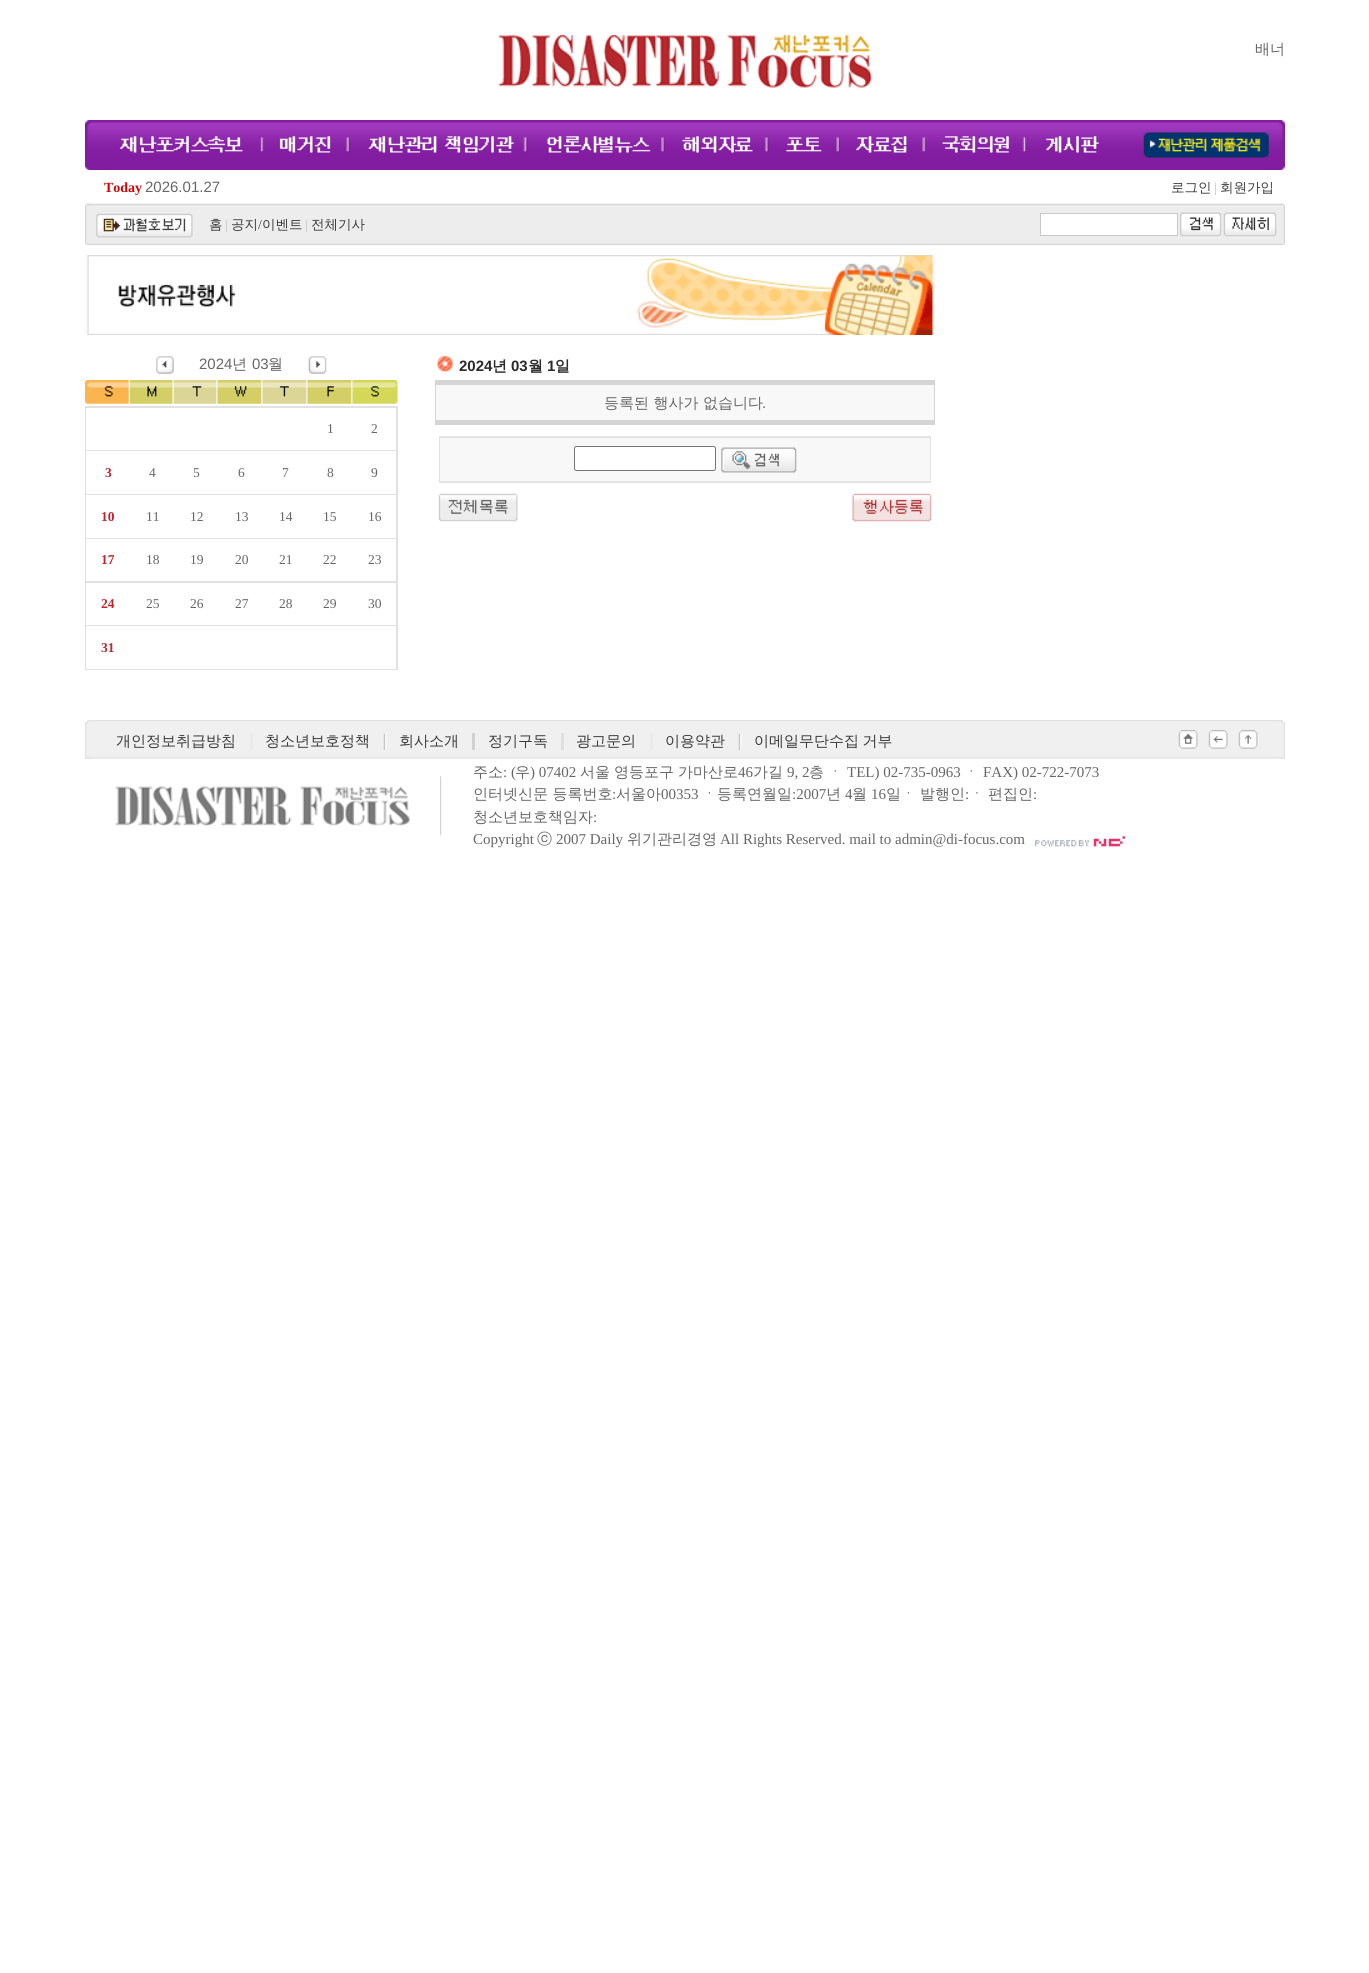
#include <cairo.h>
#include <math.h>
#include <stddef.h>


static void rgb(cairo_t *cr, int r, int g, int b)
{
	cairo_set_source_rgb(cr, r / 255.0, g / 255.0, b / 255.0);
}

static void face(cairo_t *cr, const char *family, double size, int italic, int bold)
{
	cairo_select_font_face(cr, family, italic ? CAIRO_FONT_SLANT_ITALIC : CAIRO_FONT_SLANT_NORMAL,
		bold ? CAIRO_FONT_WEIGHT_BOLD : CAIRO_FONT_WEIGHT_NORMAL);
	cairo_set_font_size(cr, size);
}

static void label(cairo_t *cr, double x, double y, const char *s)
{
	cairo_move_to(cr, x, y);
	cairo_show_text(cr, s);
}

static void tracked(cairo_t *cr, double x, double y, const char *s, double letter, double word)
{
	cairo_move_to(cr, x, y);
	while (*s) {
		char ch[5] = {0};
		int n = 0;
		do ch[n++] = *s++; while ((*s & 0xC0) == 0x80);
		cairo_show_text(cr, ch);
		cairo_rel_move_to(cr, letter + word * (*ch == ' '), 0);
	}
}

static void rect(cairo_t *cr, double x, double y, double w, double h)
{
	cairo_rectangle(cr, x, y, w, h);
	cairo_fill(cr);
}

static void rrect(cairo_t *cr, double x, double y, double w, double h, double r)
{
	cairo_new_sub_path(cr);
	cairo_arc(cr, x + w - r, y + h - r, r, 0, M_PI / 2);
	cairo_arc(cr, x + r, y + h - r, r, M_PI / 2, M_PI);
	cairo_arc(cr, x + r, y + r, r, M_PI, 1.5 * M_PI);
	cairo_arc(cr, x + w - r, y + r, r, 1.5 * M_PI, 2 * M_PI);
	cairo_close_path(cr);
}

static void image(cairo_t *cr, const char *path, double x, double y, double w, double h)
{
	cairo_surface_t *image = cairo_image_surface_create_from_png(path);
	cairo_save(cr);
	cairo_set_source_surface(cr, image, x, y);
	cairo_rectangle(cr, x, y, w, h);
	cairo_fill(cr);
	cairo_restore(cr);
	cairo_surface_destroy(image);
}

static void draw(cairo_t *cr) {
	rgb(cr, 255, 255, 255);
	cairo_paint(cr);
	image(cr, "image0.png", 498, 34, 374, 55);
	face(cr, "WenQuanYi Zen Hei Medium", 15, 0, 0);
	rgb(cr, 102, 102, 102);
	label(cr, 1255, 54, "배너");
	image(cr, "image1.png", 91, 120, 1188, 50);
	image(cr, "image2.png", 85, 120, 6, 50);
	image(cr, "image3.png", 119, 136, 145, 17);
	image(cr, "image4.png", 279, 136, 71, 17);
	image(cr, "image5.png", 368, 136, 160, 17);
	image(cr, "image6.png", 547, 136, 118, 17);
	image(cr, "image7.png", 682, 136, 87, 17);
	image(cr, "image8.png", 786, 137, 54, 16);
	image(cr, "image9.png", 856, 136, 70, 17);
	image(cr, "image10.png", 942, 136, 85, 17);
	image(cr, "image11.png", 1046, 136, 53, 17);
	image(cr, "image12.png", 1143, 132, 126, 26);
	image(cr, "image13.png", 1279, 120, 6, 50);
	face(cr, "Liberation Serif", 14, 0, 1);
	rgb(cr, 211, 4, 4);
	label(cr, 104, 192, "Today");
	face(cr, "Liberation Sans", 15, 0, 0);
	rgb(cr, 102, 102, 102);
	label(cr, 145, 192, "2026.01.27");
	face(cr, "WenQuanYi Zen Hei Medium", 13.5, 0, 0);
	rgb(cr, 59, 59, 59);
	label(cr, 1171, 192, "로그인");
	face(cr, "Liberation Serif", 13.5, 0, 0);
	rgb(cr, 190, 190, 190);
	label(cr, 1214, 192, "|");
	face(cr, "WenQuanYi Zen Hei Medium", 13.5, 0, 0);
	rgb(cr, 59, 59, 59);
	label(cr, 1220, 192, "회원가입");
	image(cr, "image14.png", 85, 203, 1200, 42);
	image(cr, "image15.png", 85, 203, 6, 42);
	image(cr, "image16.png", 96, 213, 97, 25);
	label(cr, 209, 229, "홈");
	face(cr, "Liberation Serif", 13.5, 0, 0);
	rgb(cr, 190, 190, 190);
	label(cr, 225, 229, "|");
	face(cr, "WenQuanYi Zen Hei Medium", 13.5, 0, 0);
	rgb(cr, 59, 59, 59);
	label(cr, 231, 229, "공지 이벤트");
	face(cr, "Liberation Serif", 13.5, 0, 0);
	rgb(cr, 190, 190, 190);
	label(cr, 305, 229, "|");
	face(cr, "WenQuanYi Zen Hei Medium", 13.5, 0, 0);
	rgb(cr, 59, 59, 59);
	label(cr, 311, 229, "전체기사");
	face(cr, "Liberation Serif", 13.5, 0, 0);
	label(cr, 258, 229, "/");
	rgb(cr, 255, 255, 255);
	cairo_rectangle(cr, 1040.5, 213.5, 137, 22);
	cairo_fill_preserve(cr);
	rgb(cr, 200, 200, 200);
	cairo_set_line_width(cr, 1);
	cairo_stroke(cr);
	image(cr, "image17.png", 1180, 212, 42, 25);
	image(cr, "image18.png", 1223, 212, 54, 25);
	image(cr, "image19.png", 1279, 203, 6, 42);
	rgb(cr, 249, 249, 249);
	rect(cr, 85, 255, 850, 80);
	image(cr, "image20.png", 87, 255, 846, 80);
	image(cr, "image21.png", 156, 356, 18, 18);
	face(cr, "Liberation Sans", 15, 0, 0);
	rgb(cr, 102, 102, 102);
	label(cr, 199, 369, "2024");
	face(cr, "WenQuanYi Zen Hei Medium", 15, 0, 0);
	label(cr, 232, 369, "년");
	face(cr, "Liberation Sans", 15, 0, 0);
	label(cr, 252, 369, "03");
	face(cr, "WenQuanYi Zen Hei Medium", 15, 0, 0);
	label(cr, 268, 369, "월");
	image(cr, "image22.png", 308, 356, 19, 18);
	rgb(cr, 251, 251, 251);
	rect(cr, 85, 380, 313, 24);
	image(cr, "image23.png", 85, 380, 44, 24);
	image(cr, "image24.png", 130, 380, 43, 24);
	image(cr, "image25.png", 173, 380, 44, 24);
	image(cr, "image26.png", 217, 380, 45, 24);
	image(cr, "image27.png", 262, 380, 45, 24);
	image(cr, "image28.png", 307, 380, 45, 24);
	image(cr, "image29.png", 352, 380, 46, 24);
	rgb(cr, 225, 225, 225);
	rect(cr, 85, 406, 313, 264);
	rgb(cr, 255, 255, 255);
	rect(cr, 86, 408, 310, 42);
	face(cr, "Liberation Serif", 13.5, 0, 0);
	rgb(cr, 102, 102, 102);
	label(cr, 327, 433, "1");
	label(cr, 371, 433, "2");
	rgb(cr, 255, 255, 255);
	rect(cr, 86, 451, 310, 43);
	face(cr, "Liberation Serif", 13.5, 0, 1);
	rgb(cr, 185, 38, 48);
	label(cr, 105, 477, "3");
	face(cr, "Liberation Serif", 13.5, 0, 0);
	rgb(cr, 102, 102, 102);
	label(cr, 149, 477, "4");
	label(cr, 193, 477, "5");
	label(cr, 238, 477, "6");
	label(cr, 282, 477, "7");
	label(cr, 327, 477, "8");
	label(cr, 371, 477, "9");
	rgb(cr, 255, 255, 255);
	rect(cr, 86, 495, 310, 43);
	face(cr, "Liberation Serif", 13.5, 0, 1);
	rgb(cr, 185, 38, 48);
	label(cr, 101, 521, "10");
	face(cr, "Liberation Serif", 13.5, 0, 0);
	rgb(cr, 102, 102, 102);
	label(cr, 146, 521, "11");
	label(cr, 190, 521, "12");
	label(cr, 235, 521, "13");
	label(cr, 279, 521, "14");
	label(cr, 323, 521, "15");
	label(cr, 368, 521, "16");
	rgb(cr, 255, 255, 255);
	rect(cr, 86, 539, 310, 42);
	face(cr, "Liberation Serif", 13.5, 0, 1);
	rgb(cr, 185, 38, 48);
	label(cr, 101, 564, "17");
	face(cr, "Liberation Serif", 13.5, 0, 0);
	rgb(cr, 102, 102, 102);
	label(cr, 146, 564, "18");
	label(cr, 190, 564, "19");
	label(cr, 235, 564, "20");
	label(cr, 279, 564, "21");
	label(cr, 323, 564, "22");
	label(cr, 368, 564, "23");
	rgb(cr, 255, 255, 255);
	rect(cr, 86, 583, 310, 42);
	face(cr, "Liberation Serif", 13.5, 0, 1);
	rgb(cr, 185, 38, 48);
	label(cr, 101, 608, "24");
	face(cr, "Liberation Serif", 13.5, 0, 0);
	rgb(cr, 102, 102, 102);
	label(cr, 146, 608, "25");
	label(cr, 190, 608, "26");
	label(cr, 235, 608, "27");
	label(cr, 279, 608, "28");
	label(cr, 323, 608, "29");
	label(cr, 368, 608, "30");
	rgb(cr, 255, 255, 255);
	rect(cr, 86, 626, 310, 43);
	face(cr, "Liberation Serif", 13.5, 0, 1);
	rgb(cr, 185, 38, 48);
	label(cr, 101, 652, "31");
	image(cr, "image30.png", 437, 356, 16, 16);
	face(cr, "Liberation Sans", 15, 0, 1);
	rgb(cr, 43, 43, 43);
	label(cr, 459, 371, "2024");
	face(cr, "WenQuanYi Zen Hei", 15, 0, 1);
	label(cr, 492, 371, "년");
	face(cr, "Liberation Sans", 15, 0, 1);
	label(cr, 511, 371, "03");
	face(cr, "WenQuanYi Zen Hei", 15, 0, 1);
	label(cr, 528, 371, "월");
	face(cr, "Liberation Sans", 15, 0, 1);
	label(cr, 547, 371, "1");
	face(cr, "WenQuanYi Zen Hei", 15, 0, 1);
	label(cr, 555, 371, "일");
	rgb(cr, 213, 213, 213);
	rect(cr, 435, 380, 500, 45);
	rgb(cr, 248, 248, 248);
	rect(cr, 436, 385, 498, 35);
	face(cr, "WenQuanYi Zen Hei Medium", 15, 0, 0);
	rgb(cr, 102, 102, 102);
	label(cr, 604, 408, "등록된 행사가 없습니다");
	face(cr, "Liberation Sans", 15, 0, 0);
	label(cr, 762, 408, ".");
	rgb(cr, 227, 227, 227);
	rect(cr, 439, 436, 492, 47);
	rgb(cr, 248, 248, 248);
	rect(cr, 440, 438, 490, 43);
	rgb(cr, 255, 255, 255);
	rrect(cr, 574.5, 446.5, 141, 24, 2);
	cairo_fill_preserve(cr);
	rgb(cr, 118, 118, 118);
	cairo_stroke(cr);
	image(cr, "image31.png", 721, 447, 76, 26);
	image(cr, "image32.png", 438, 493, 80, 29);
	image(cr, "image33.png", 852, 493, 80, 29);
	image(cr, "image34.png", 85, 720, 1200, 39);
	image(cr, "image35.png", 85, 720, 6, 39);
	face(cr, "WenQuanYi Zen Hei Medium", 15, 0, 0);
	rgb(cr, 59, 59, 59);
	label(cr, 116, 746, "개인정보취급방침");
	rgb(cr, 235, 235, 235);
	rect(cr, 250, 733, 3, 17);
	rgb(cr, 59, 59, 59);
	label(cr, 265, 746, "청소년보호정책");
	image(cr, "image36.png", 383, 733, 4, 17);
	label(cr, 399, 746, "회사소개");
	rgb(cr, 209, 209, 209);
	rect(cr, 472, 733, 3, 17);
	rgb(cr, 59, 59, 59);
	label(cr, 488, 746, "정기구독");
	rgb(cr, 224, 224, 224);
	rect(cr, 561, 733, 3, 17);
	rgb(cr, 59, 59, 59);
	label(cr, 576, 746, "광고문의");
	rgb(cr, 235, 235, 235);
	rect(cr, 650, 733, 3, 17);
	rgb(cr, 59, 59, 59);
	label(cr, 665, 746, "이용약관");
	image(cr, "image36.png", 738, 733, 4, 17);
	tracked(cr, 754, 746, "이메일무단수집 거부", 0, -1);
	image(cr, "image37.png", 1178, 730, 20, 19);
	image(cr, "image38.png", 1208, 730, 20, 19);
	image(cr, "image39.png", 1238, 730, 20, 19);
	image(cr, "image40.png", 1279, 720, 6, 39);
	image(cr, "image41.png", 115, 786, 296, 40);
	image(cr, "image42.png", 440, 776, 2, 59);
	rgb(cr, 102, 102, 102);
	label(cr, 473, 777, "주소");
	face(cr, "Liberation Serif", 15, 0, 0);
	label(cr, 503, 777, ": (");
	face(cr, "WenQuanYi Zen Hei Medium", 15, 0, 0);
	label(cr, 515, 777, "우");
	face(cr, "Liberation Serif", 15, 0, 0);
	label(cr, 530, 777, ") 07402");
	face(cr, "WenQuanYi Zen Hei Medium", 15, 0, 0);
	label(cr, 580, 777, "서울");
	label(cr, 614, 777, "영등포구");
	label(cr, 678, 777, "가마산로");
	face(cr, "Liberation Serif", 15, 0, 0);
	label(cr, 738, 777, "46");
	face(cr, "WenQuanYi Zen Hei Medium", 15, 0, 0);
	label(cr, 753, 777, "가길");
	face(cr, "Liberation Serif", 15, 0, 0);
	label(cr, 787, 777, "9, 2");
	face(cr, "WenQuanYi Zen Hei Medium", 15, 0, 0);
	label(cr, 809, 777, "층");
	label(cr, 828, 777, "ㆍ");
	face(cr, "Liberation Serif", 15, 0, 0);
	label(cr, 847, 777, "TEL) 02-735-0963");
	face(cr, "WenQuanYi Zen Hei Medium", 15, 0, 0);
	label(cr, 964, 777, "ㆍ");
	face(cr, "Liberation Serif", 15, 0, 0);
	label(cr, 983, 777, "FAX) 02-722-7073");
	face(cr, "WenQuanYi Zen Hei Medium", 15, 0, 0);
	label(cr, 473, 799, "인터넷신문 등록번호");
	face(cr, "Liberation Serif", 15, 0, 0);
	label(cr, 612, 799, ":");
	face(cr, "WenQuanYi Zen Hei Medium", 15, 0, 0);
	label(cr, 616, 799, "서울아");
	face(cr, "Liberation Serif", 15, 0, 0);
	label(cr, 661, 799, "00353");
	face(cr, "WenQuanYi Zen Hei Medium", 15, 0, 0);
	label(cr, 702, 799, "ㆍ등록연월일");
	face(cr, "Liberation Serif", 15, 0, 0);
	label(cr, 792, 799, ":2007");
	face(cr, "WenQuanYi Zen Hei Medium", 15, 0, 0);
	label(cr, 826, 799, "년");
	face(cr, "Liberation Serif", 15, 0, 0);
	label(cr, 845, 799, "4");
	face(cr, "WenQuanYi Zen Hei Medium", 15, 0, 0);
	label(cr, 852, 799, "월");
	face(cr, "Liberation Serif", 15, 0, 0);
	label(cr, 871, 799, "16");
	face(cr, "WenQuanYi Zen Hei Medium", 15, 0, 0);
	label(cr, 886, 799, "일ㆍ");
	label(cr, 920, 799, "발행인 ㆍ");
	label(cr, 988, 799, "편집인");
	face(cr, "Liberation Serif", 15, 0, 0);
	label(cr, 965, 799, ":");
	label(cr, 1033, 799, ":");
	face(cr, "WenQuanYi Zen Hei Medium", 15, 0, 0);
	label(cr, 473, 822, "청소년보호책임자");
	face(cr, "Liberation Serif", 15, 0, 0);
	label(cr, 593, 822, ":");
	label(cr, 473, 844, "Copyright");
	face(cr, "WenQuanYi Zen Hei Medium", 15, 0, 0);
	label(cr, 537, 844, "ⓒ");
	face(cr, "Liberation Serif", 15, 0, 0);
	label(cr, 556, 844, "2007 Daily");
	face(cr, "WenQuanYi Zen Hei Medium", 15, 0, 0);
	label(cr, 627, 844, "위기관리경영");
	face(cr, "Liberation Serif", 15, 0, 0);
	label(cr, 720, 844, "All Rights Reserved. mail to admin@di-focus.com");
	image(cr, "image43.png", 1034, 836, 92, 11);
}

int main(void) {
	cairo_surface_t *surface = cairo_image_surface_create(CAIRO_FORMAT_RGB24, 1369, 1973);
	cairo_t *cr = cairo_create(surface);
	cairo_font_options_t *options = cairo_font_options_create();
	cairo_font_options_set_hint_metrics(options, CAIRO_HINT_METRICS_OFF);
	cairo_font_options_set_hint_style(options, CAIRO_HINT_STYLE_NONE);
	cairo_set_font_options(cr, options);
	cairo_set_miter_limit(cr, 4);
	draw(cr);
	cairo_surface_write_to_png(surface, "render.png");
	cairo_font_options_destroy(options);
	cairo_destroy(cr);
	cairo_surface_destroy(surface);
	return 0;
}
